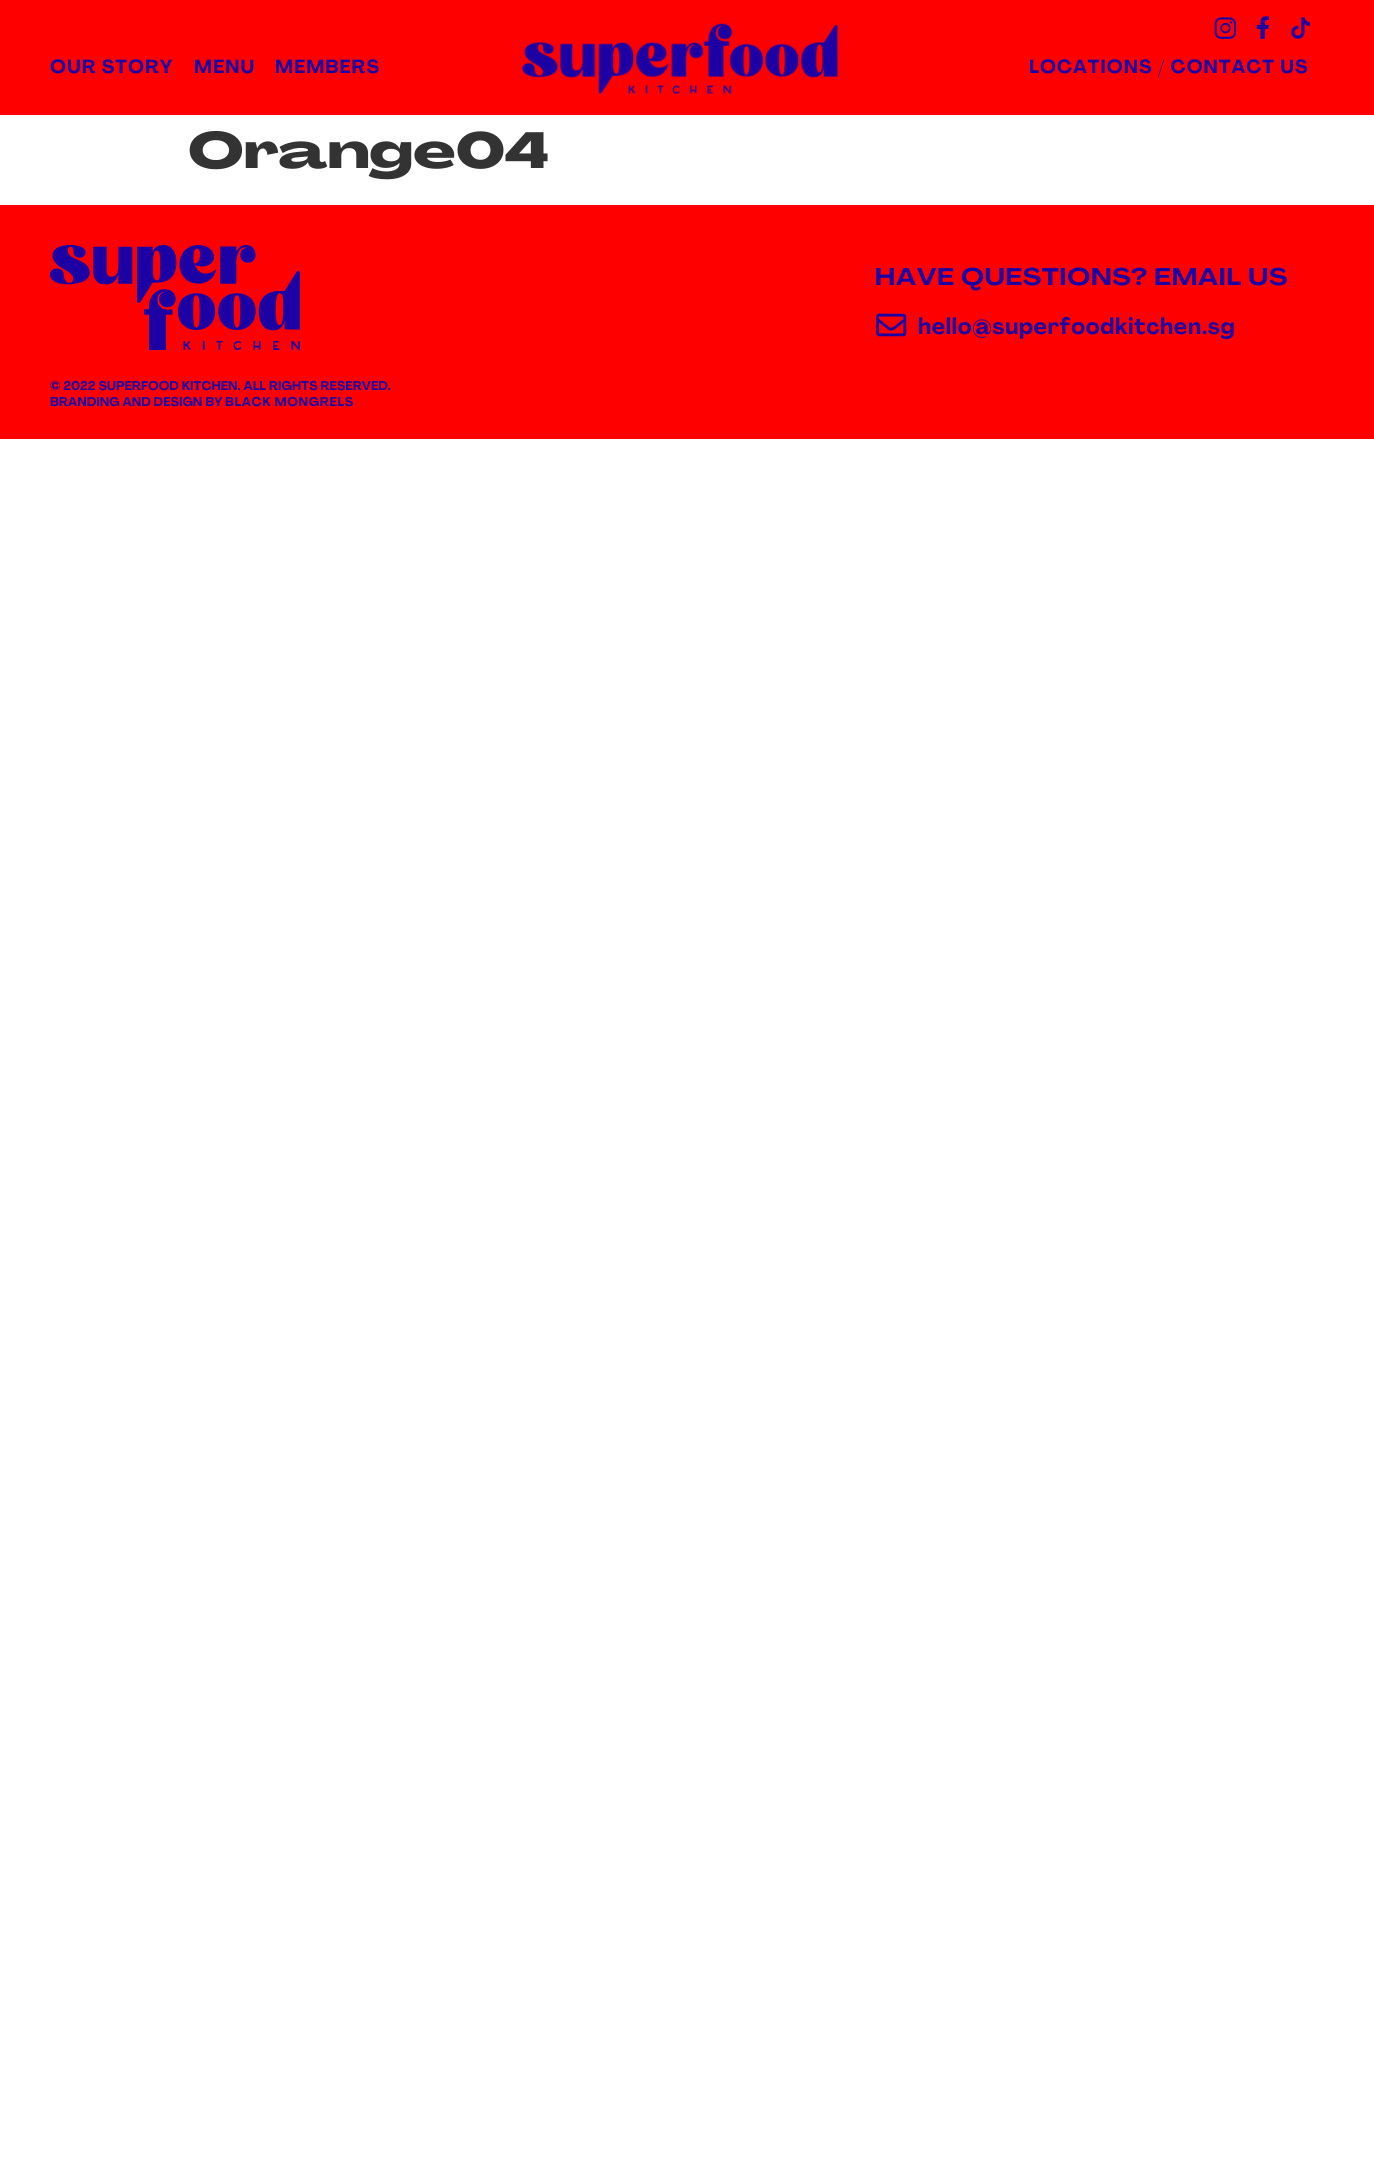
#include <cairo.h>
#include <math.h>
#include <stddef.h>


static void rgb(cairo_t *cr, int r, int g, int b)
{
	cairo_set_source_rgb(cr, r / 255.0, g / 255.0, b / 255.0);
}

static void face(cairo_t *cr, const char *family, double size, int italic, int bold)
{
	cairo_select_font_face(cr, family, italic ? CAIRO_FONT_SLANT_ITALIC : CAIRO_FONT_SLANT_NORMAL,
		bold ? CAIRO_FONT_WEIGHT_BOLD : CAIRO_FONT_WEIGHT_NORMAL);
	cairo_set_font_size(cr, size);
}

static void label(cairo_t *cr, double x, double y, const char *s)
{
	cairo_move_to(cr, x, y);
	cairo_show_text(cr, s);
}

static void tracked(cairo_t *cr, double x, double y, const char *s, double letter, double word)
{
	cairo_move_to(cr, x, y);
	while (*s) {
		char ch[5] = {0};
		int n = 0;
		do ch[n++] = *s++; while ((*s & 0xC0) == 0x80);
		cairo_show_text(cr, ch);
		cairo_rel_move_to(cr, letter + word * (*ch == ' '), 0);
	}
}

static void rect(cairo_t *cr, double x, double y, double w, double h)
{
	cairo_rectangle(cr, x, y, w, h);
	cairo_fill(cr);
}

static void image(cairo_t *cr, const char *path, double x, double y, double w, double h)
{
	cairo_surface_t *image = cairo_image_surface_create_from_png(path);
	cairo_save(cr);
	cairo_set_source_surface(cr, image, x, y);
	cairo_rectangle(cr, x, y, w, h);
	cairo_fill(cr);
	cairo_restore(cr);
	cairo_surface_destroy(image);
}

static void draw(cairo_t *cr) {
	rgb(cr, 255, 255, 255);
	cairo_paint(cr);
	rgb(cr, 255, 0, 0);
	rect(cr, 0, 0, 1374, 115);
	face(cr, "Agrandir", 18.75, 0, 1);
	rgb(cr, 28, 0, 164);
	tracked(cr, 50, 73, "OUR STORY", 1, 0);
	tracked(cr, 194, 73, "MENU", 1, 0);
	tracked(cr, 275, 73, "MEMBERS", 1, 0);
	image(cr, "image0.png", 522, 23, 317, 71);
	image(cr, "image1.png", 1214, 17, 22, 22);
	image(cr, "image2.png", 1256, 16, 13, 23);
	image(cr, "image3.png", 1291, 17, 19, 22);
	tracked(cr, 1029, 73, "LOCATIONS / CONTACT US", 1, 0);
	face(cr, "Agrandir Black", 50, 0, 0);
	rgb(cr, 51, 51, 51);
	label(cr, 188, 168, "Orange04");
	rgb(cr, 255, 0, 0);
	rect(cr, 0, 205, 1374, 234);
	face(cr, "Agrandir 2", 23.75, 0, 1);
	rgb(cr, 28, 0, 164);
	tracked(cr, 875, 285, "HAVE QUESTIONS? EMAIL US", 0.75, 0);
	image(cr, "image4.png", 876, 313, 31, 24);
	face(cr, "Agrandir", 22.5, 0, 1);
	tracked(cr, 918, 334, "hello@superfoodkitchen.sg", 0.7, 0);
	image(cr, "image5.png", 50, 245, 250, 105);
	face(cr, "Agrandir", 12.5, 0, 1);
	label(cr, 50, 390, "© 2022 SUPERFOOD KITCHEN. ALL RIGHTS RESERVED.");
	label(cr, 50, 406, "BRANDING AND DESIGN BY");
	tracked(cr, 225, 406, "BLACK MONGRELS", 0.6, 0);
}

int main(void) {
	cairo_surface_t *surface = cairo_image_surface_create(CAIRO_FORMAT_RGB24, 1374, 2182);
	cairo_t *cr = cairo_create(surface);
	cairo_font_options_t *options = cairo_font_options_create();
	cairo_font_options_set_hint_metrics(options, CAIRO_HINT_METRICS_OFF);
	cairo_font_options_set_hint_style(options, CAIRO_HINT_STYLE_NONE);
	cairo_set_font_options(cr, options);
	cairo_set_miter_limit(cr, 4);
	draw(cr);
	cairo_surface_write_to_png(surface, "render.png");
	cairo_font_options_destroy(options);
	cairo_destroy(cr);
	cairo_surface_destroy(surface);
	return 0;
}
